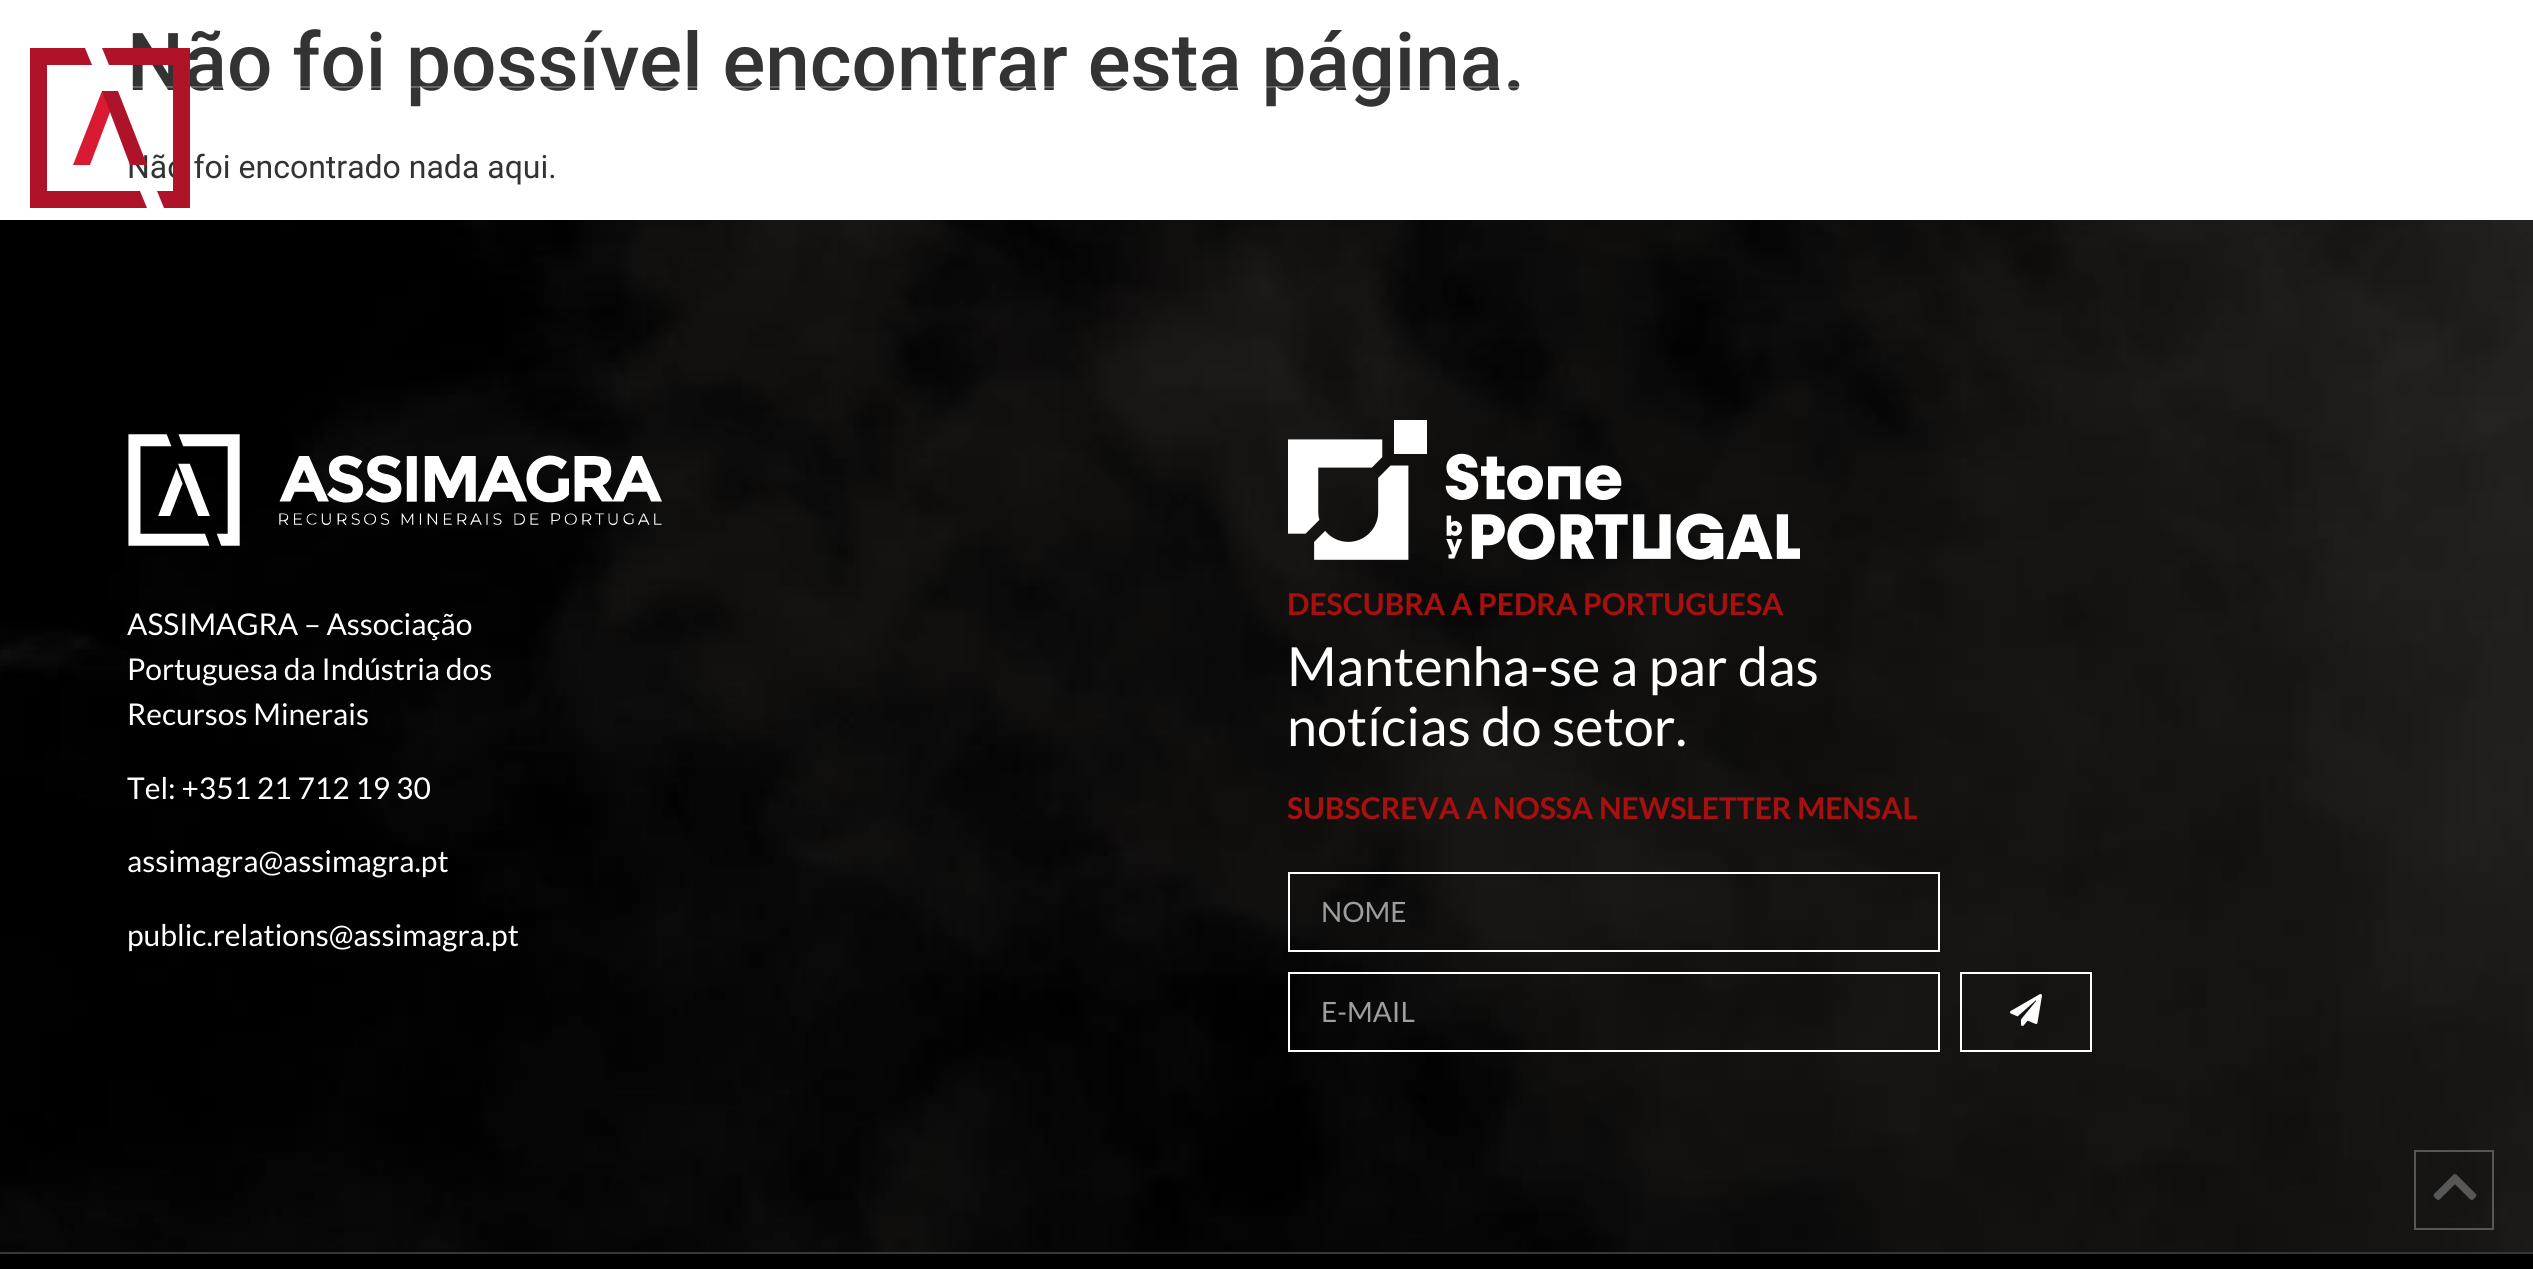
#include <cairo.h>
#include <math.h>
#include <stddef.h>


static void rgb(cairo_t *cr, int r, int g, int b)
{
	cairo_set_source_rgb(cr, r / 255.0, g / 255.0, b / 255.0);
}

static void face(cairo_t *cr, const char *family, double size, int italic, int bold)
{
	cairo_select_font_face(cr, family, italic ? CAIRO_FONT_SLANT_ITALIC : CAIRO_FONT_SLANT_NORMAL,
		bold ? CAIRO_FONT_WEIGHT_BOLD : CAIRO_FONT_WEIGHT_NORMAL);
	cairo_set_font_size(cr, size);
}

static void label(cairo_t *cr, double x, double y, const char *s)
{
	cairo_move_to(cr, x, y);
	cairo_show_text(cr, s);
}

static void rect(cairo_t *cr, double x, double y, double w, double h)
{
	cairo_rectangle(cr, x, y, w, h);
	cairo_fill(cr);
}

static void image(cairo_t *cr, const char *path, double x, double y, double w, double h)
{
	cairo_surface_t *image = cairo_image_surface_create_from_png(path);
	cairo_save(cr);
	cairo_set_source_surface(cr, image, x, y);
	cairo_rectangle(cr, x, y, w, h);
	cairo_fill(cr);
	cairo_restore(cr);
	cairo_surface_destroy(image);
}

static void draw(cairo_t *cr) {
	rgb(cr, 255, 255, 255);
	cairo_paint(cr);
	face(cr, "Roboto Medium", 80, 0, 0);
	rgb(cr, 51, 51, 51);
	label(cr, 127, 90, "Não foi possível encontrar esta página.");
	face(cr, "Roboto", 32, 0, 0);
	label(cr, 127, 178, "Não foi encontrado nada aqui.");
	rgb(cr, 218, 26, 50);
	cairo_new_path(cr);
	cairo_move_to(cr, 90, 165);
	cairo_line_to(cr, 73, 165);
	cairo_line_to(cr, 102, 91);
	cairo_line_to(cr, 118, 91);
	cairo_close_path(cr);
	cairo_fill(cr);
	rgb(cr, 174, 19, 42);
	cairo_new_path(cr);
	cairo_move_to(cr, 130, 165);
	cairo_line_to(cr, 147, 165);
	cairo_line_to(cr, 118, 91);
	cairo_line_to(cr, 102, 91);
	cairo_close_path(cr);
	cairo_fill(cr);
	cairo_set_source_rgba(cr, 1, 1, 1, 0.25);
	rect(cr, 132, 86, 1387, 2);
	rgb(cr, 174, 19, 42);
	cairo_new_path(cr);
	cairo_move_to(cr, 47, 191);
	cairo_line_to(cr, 47, 65);
	cairo_line_to(cr, 92, 65);
	cairo_line_to(cr, 85, 48);
	cairo_line_to(cr, 30, 48);
	cairo_line_to(cr, 30, 208);
	cairo_line_to(cr, 147, 208);
	cairo_line_to(cr, 140, 191);
	cairo_close_path(cr);
	cairo_fill(cr);
	cairo_new_path(cr);
	cairo_move_to(cr, 173, 48);
	cairo_line_to(cr, 102, 48);
	cairo_line_to(cr, 109, 65);
	cairo_line_to(cr, 173, 65);
	cairo_line_to(cr, 173, 191);
	cairo_line_to(cr, 157, 191);
	cairo_line_to(cr, 164, 208);
	cairo_line_to(cr, 190, 208);
	cairo_line_to(cr, 190, 48);
	cairo_close_path(cr);
	cairo_fill(cr);
	image(cr, "image0.png", 0, 220, 2533, 1032);
	image(cr, "image1.png", 128, 434, 534, 112);
	face(cr, "Lato", 30, 0, 0);
	rgb(cr, 255, 255, 255);
	label(cr, 127, 635, "ASSIMAGRA – Associação");
	label(cr, 127, 680, "Portuguesa da Indústria dos");
	label(cr, 127, 725, "Recursos Minerais");
	label(cr, 127, 799, "Tel: +351 21 712 19 30");
	label(cr, 127, 872, "assimagra@assimagra.pt");
	label(cr, 127, 946, "public.relations@assimagra.pt");
	image(cr, "image2.png", 1288, 420, 512, 140);
	face(cr, "Lato", 30, 0, 1);
	rgb(cr, 168, 16, 16);
	label(cr, 1287, 615, "DESCUBRA A PEDRA PORTUGUESA");
	face(cr, "Lato", 54, 0, 0);
	rgb(cr, 255, 255, 255);
	label(cr, 1287, 686, "Mantenha-se a par das");
	label(cr, 1287, 746, "notícias do setor.");
	face(cr, "Lato", 30, 0, 1);
	rgb(cr, 168, 16, 16);
	label(cr, 1287, 819, "SUBSCREVA A NOSSA NEWSLETTER MENSAL");
	cairo_rectangle(cr, 1289, 873, 650, 78);
	rgb(cr, 255, 255, 255);
	cairo_stroke(cr);
	face(cr, "Lato", 28, 0, 0);
	rgb(cr, 158, 158, 158);
	label(cr, 1321, 922, "NOME");
	cairo_rectangle(cr, 1289, 973, 650, 78);
	rgb(cr, 255, 255, 255);
	cairo_stroke(cr);
	rgb(cr, 158, 158, 158);
	label(cr, 1321, 1022, "E-MAIL");
	cairo_rectangle(cr, 1961, 973, 130, 78);
	rgb(cr, 255, 255, 255);
	cairo_stroke(cr);
	image(cr, "image3.png", 2010, 994, 32, 32);
	cairo_rectangle(cr, 2415, 1151, 78, 78);
	rgb(cr, 87, 87, 87);
	cairo_stroke(cr);
	image(cr, "image4.png", 2433, 1174, 44, 26);
	rgb(cr, 0, 0, 0);
	rect(cr, 0, 1254, 2533, 15);
	rgb(cr, 54, 54, 54);
	rect(cr, 0, 1252, 2533, 2);
}

int main(void) {
	cairo_surface_t *surface = cairo_image_surface_create(CAIRO_FORMAT_RGB24, 2533, 1269);
	cairo_t *cr = cairo_create(surface);
	cairo_font_options_t *options = cairo_font_options_create();
	cairo_font_options_set_hint_metrics(options, CAIRO_HINT_METRICS_OFF);
	cairo_font_options_set_hint_style(options, CAIRO_HINT_STYLE_NONE);
	cairo_set_font_options(cr, options);
	cairo_set_miter_limit(cr, 4);
	draw(cr);
	cairo_surface_write_to_png(surface, "render.png");
	cairo_font_options_destroy(options);
	cairo_destroy(cr);
	cairo_surface_destroy(surface);
	return 0;
}
